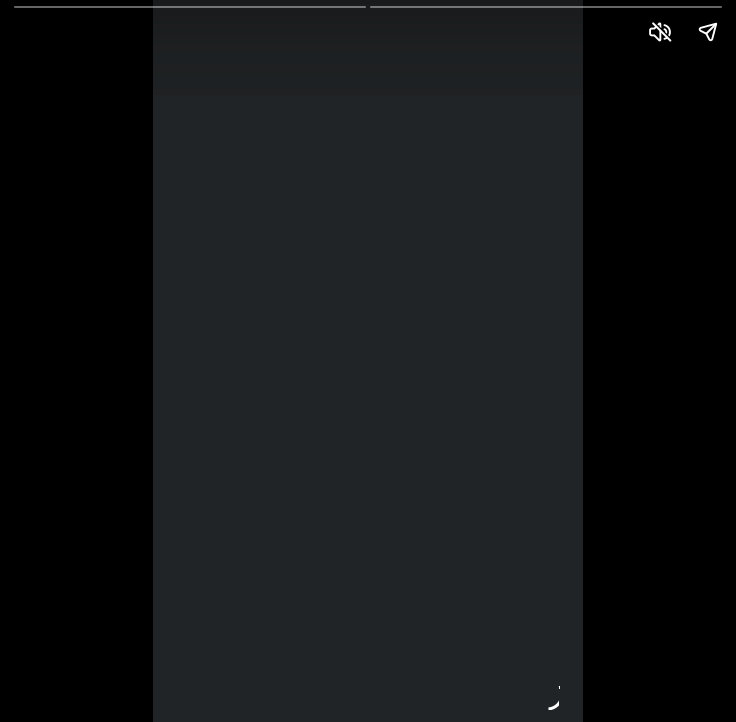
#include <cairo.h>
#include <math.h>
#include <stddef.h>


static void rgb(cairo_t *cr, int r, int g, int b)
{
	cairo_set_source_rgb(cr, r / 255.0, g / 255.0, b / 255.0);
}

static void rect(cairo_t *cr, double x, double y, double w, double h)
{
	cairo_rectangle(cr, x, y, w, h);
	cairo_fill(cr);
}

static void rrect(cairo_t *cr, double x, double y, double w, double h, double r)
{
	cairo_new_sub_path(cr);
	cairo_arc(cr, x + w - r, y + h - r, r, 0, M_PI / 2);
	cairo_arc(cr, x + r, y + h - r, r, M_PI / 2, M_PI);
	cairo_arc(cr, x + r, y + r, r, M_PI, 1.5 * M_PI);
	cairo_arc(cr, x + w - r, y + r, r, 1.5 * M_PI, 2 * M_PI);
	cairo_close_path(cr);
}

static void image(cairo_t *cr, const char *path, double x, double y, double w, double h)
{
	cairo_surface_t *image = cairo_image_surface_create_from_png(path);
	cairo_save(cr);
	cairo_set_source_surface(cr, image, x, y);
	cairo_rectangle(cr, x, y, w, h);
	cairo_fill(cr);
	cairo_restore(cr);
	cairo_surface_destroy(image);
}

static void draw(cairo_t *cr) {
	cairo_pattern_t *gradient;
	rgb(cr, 0, 0, 0);
	cairo_paint(cr);
	rgb(cr, 33, 36, 38);
	rect(cr, 153, 0, 430, 722);
	gradient = cairo_pattern_create_linear(368, 0, 368, 140);
	cairo_pattern_add_color_stop_rgba(gradient, 0, 0, 0, 0, 0.27);
	cairo_pattern_add_color_stop_rgba(gradient, 0.33, 0, 0, 0, 0.13);
	cairo_pattern_add_color_stop_rgba(gradient, 0.67, 0, 0, 0, 0.07);
	cairo_pattern_add_color_stop_rgba(gradient, 1, 0, 0, 0, 0);
	cairo_set_source(cr, gradient);
	cairo_pattern_destroy(gradient);
	rect(cr, 153, 0, 430, 95);
	cairo_set_source_rgba(cr, 1, 1, 1, 0.4);
	rrect(cr, 14, 6, 352, 2, 1);
	cairo_fill(cr);
	rrect(cr, 370, 6, 352, 2, 1);
	cairo_fill(cr);
	image(cr, "image0.png", 649, 22, 23, 20);
	image(cr, "image1.png", 698, 22, 20, 20);
	cairo_save(cr);
	cairo_rectangle(cr, 547, 686, 12, 24);
	cairo_clip(cr);
	cairo_new_path(cr);
	cairo_move_to(cr, 545.5, 678.5);
	cairo_curve_to(cr, 548.5, 678, 551.5, 679, 554, 680);
	cairo_curve_to(cr, 567.5, 687, 563.5, 707.5, 548.5, 709);
	rgb(cr, 255, 255, 255);
	cairo_set_line_width(cr, 3);
	cairo_stroke(cr);
	cairo_restore(cr);
	rgb(cr, 255, 255, 255);
	rect(cr, 559, 686, 1, 3);
}

int main(void) {
	cairo_surface_t *surface = cairo_image_surface_create(CAIRO_FORMAT_RGB24, 736, 722);
	cairo_t *cr = cairo_create(surface);
	cairo_font_options_t *options = cairo_font_options_create();
	cairo_font_options_set_hint_metrics(options, CAIRO_HINT_METRICS_OFF);
	cairo_font_options_set_hint_style(options, CAIRO_HINT_STYLE_NONE);
	cairo_set_font_options(cr, options);
	cairo_set_miter_limit(cr, 4);
	draw(cr);
	cairo_surface_write_to_png(surface, "render.png");
	cairo_font_options_destroy(options);
	cairo_destroy(cr);
	cairo_surface_destroy(surface);
	return 0;
}
